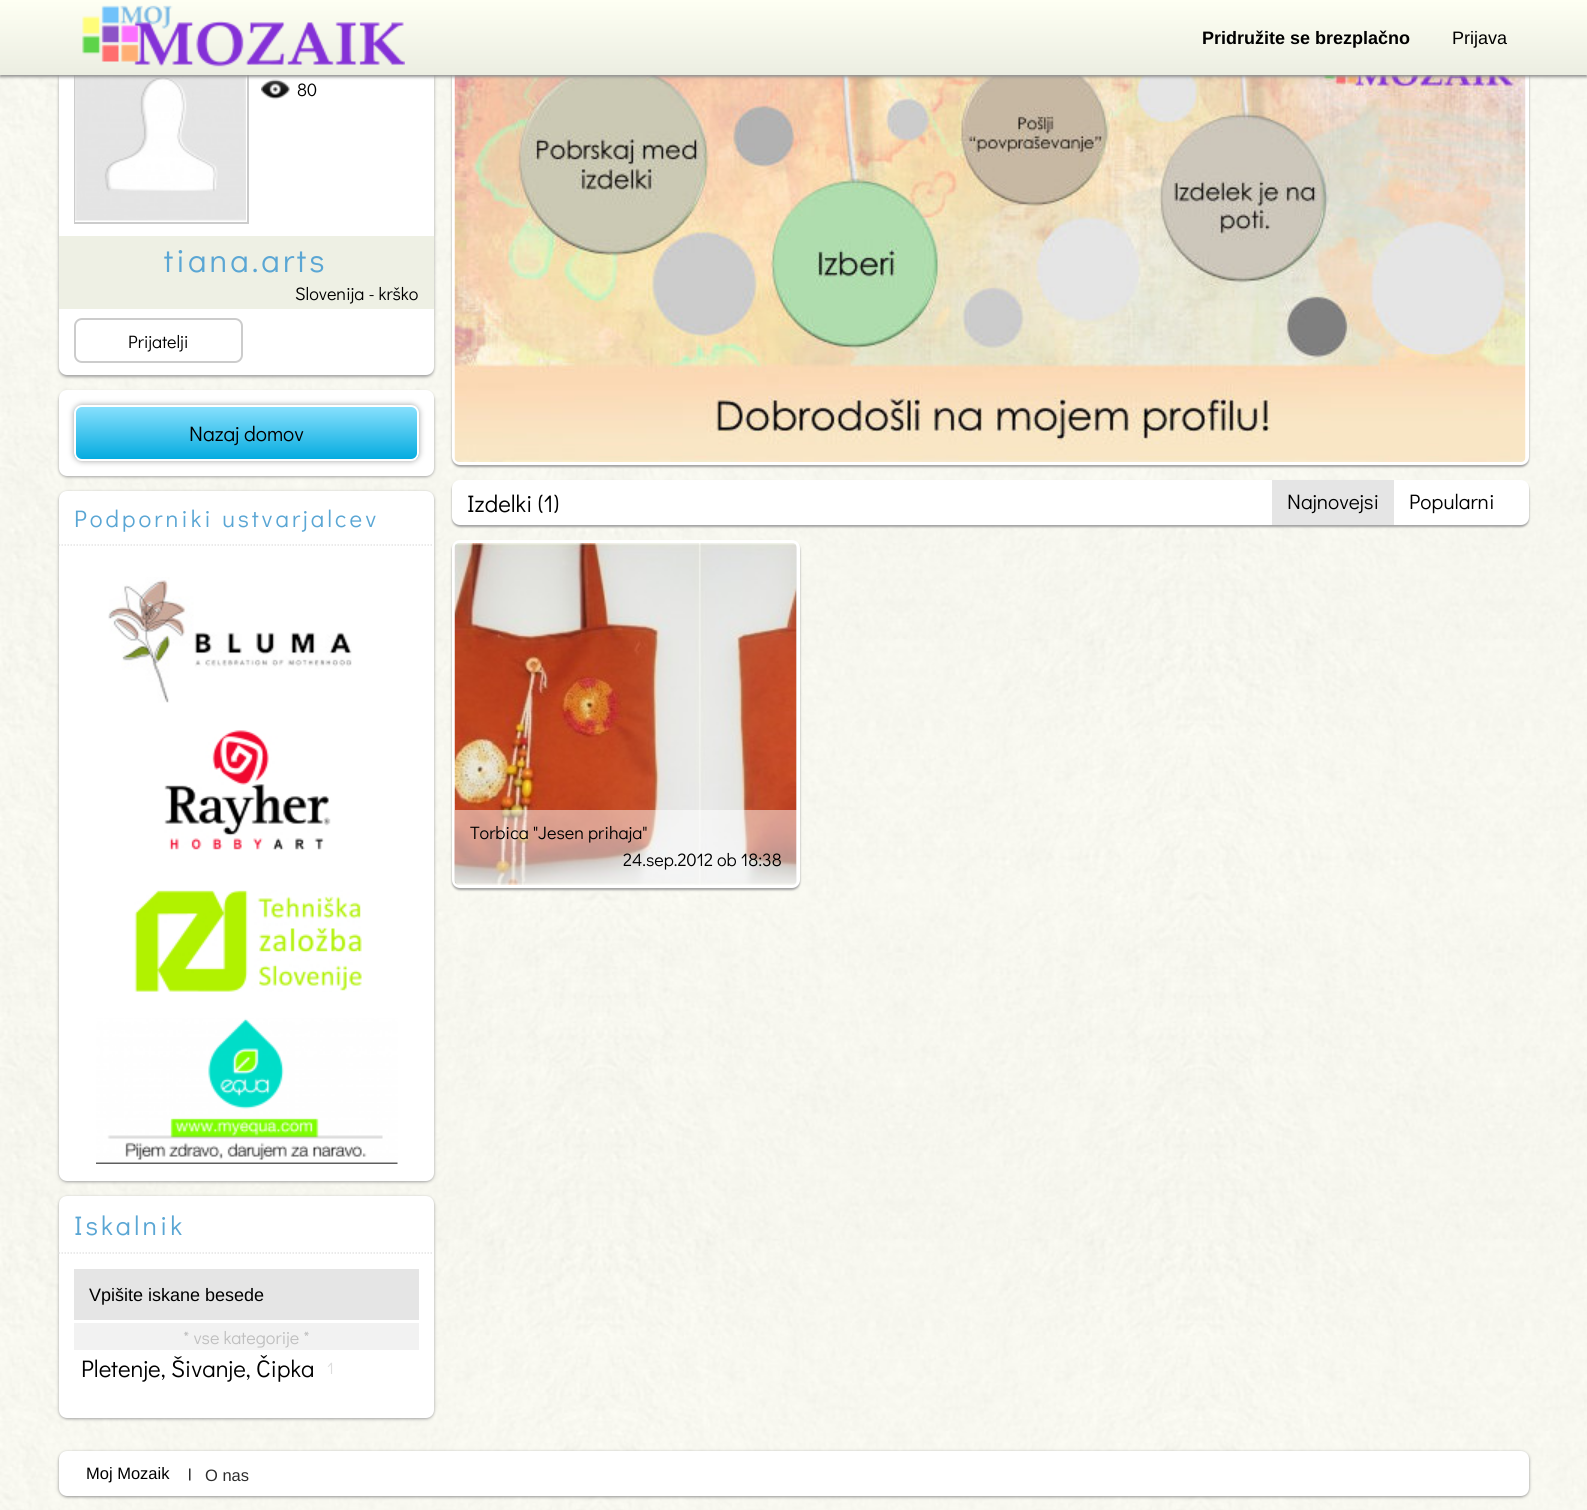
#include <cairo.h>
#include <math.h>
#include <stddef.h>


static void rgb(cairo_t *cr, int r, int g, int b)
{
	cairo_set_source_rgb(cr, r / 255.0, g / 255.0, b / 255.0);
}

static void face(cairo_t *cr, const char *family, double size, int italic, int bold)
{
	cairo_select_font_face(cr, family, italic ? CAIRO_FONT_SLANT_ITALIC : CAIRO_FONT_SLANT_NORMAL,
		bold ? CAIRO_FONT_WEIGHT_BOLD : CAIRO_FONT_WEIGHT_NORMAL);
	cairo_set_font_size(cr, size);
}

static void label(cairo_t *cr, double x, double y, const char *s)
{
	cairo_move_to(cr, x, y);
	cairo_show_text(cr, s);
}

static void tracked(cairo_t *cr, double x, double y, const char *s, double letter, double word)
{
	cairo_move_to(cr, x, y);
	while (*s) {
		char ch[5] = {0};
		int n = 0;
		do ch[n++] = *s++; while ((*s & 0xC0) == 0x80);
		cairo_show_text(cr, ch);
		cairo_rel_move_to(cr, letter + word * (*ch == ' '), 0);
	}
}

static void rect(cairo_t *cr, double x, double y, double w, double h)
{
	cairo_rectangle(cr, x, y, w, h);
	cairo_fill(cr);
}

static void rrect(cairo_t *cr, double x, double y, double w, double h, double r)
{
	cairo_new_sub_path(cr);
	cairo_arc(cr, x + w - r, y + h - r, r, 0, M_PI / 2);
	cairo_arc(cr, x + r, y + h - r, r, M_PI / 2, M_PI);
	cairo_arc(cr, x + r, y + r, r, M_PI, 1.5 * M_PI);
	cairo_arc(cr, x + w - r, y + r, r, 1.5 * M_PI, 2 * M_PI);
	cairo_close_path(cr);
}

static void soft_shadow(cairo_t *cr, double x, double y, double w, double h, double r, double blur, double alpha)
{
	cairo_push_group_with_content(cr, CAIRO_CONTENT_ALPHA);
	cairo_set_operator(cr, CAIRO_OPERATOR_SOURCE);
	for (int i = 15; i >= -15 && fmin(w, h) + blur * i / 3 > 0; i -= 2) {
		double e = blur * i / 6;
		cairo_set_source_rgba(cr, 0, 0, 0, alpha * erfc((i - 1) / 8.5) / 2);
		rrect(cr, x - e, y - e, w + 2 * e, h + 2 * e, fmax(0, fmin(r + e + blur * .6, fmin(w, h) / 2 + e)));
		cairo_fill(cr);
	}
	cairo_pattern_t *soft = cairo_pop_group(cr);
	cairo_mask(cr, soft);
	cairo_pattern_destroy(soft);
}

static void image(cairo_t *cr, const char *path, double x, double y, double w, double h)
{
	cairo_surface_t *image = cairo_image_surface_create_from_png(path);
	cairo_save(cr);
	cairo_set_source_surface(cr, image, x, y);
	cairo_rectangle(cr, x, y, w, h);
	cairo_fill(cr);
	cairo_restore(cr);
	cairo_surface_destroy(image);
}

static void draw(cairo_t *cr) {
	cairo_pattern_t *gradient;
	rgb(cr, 255, 255, 255);
	cairo_paint(cr);
	image(cr, "image0.png", 0, 75, 1587, 1435);
	rgb(cr, 161, 161, 161);
	soft_shadow(cr, 59, 35, 375, 342, 8, 1.5, 1);
	rgb(cr, 255, 255, 255);
	rrect(cr, 59, 33, 375, 342, 8);
	cairo_fill(cr);
	cairo_rectangle(cr, 75, 49, 173, 174);
	rgb(cr, 204, 204, 204);
	cairo_stroke(cr);
	image(cr, "image2.png", 75, 75, 171, 147);
	image(cr, "image3.png", 261, 79, 29, 21);
	rgb(cr, 161, 161, 161);
	soft_shadow(cr, 452, 35, 1077, 432, 8, 1, 1);
	rgb(cr, 255, 255, 255);
	rrect(cr, 453.5, 34.5, 1074, 429, 6.5);
	cairo_fill_preserve(cr);
	cairo_set_line_width(cr, 3);
	cairo_stroke(cr);
	image(cr, "image8.png", 454, 75, 1072, 387);
	rgb(cr, 144, 144, 144);
	soft_shadow(cr, 0, 2, 1587, 75, 0, 1.5, 1);
	gradient = cairo_pattern_create_linear(794, 0, 794, 75);
	cairo_pattern_add_color_stop_rgba(gradient, 0, 0.996, 1, 0.953, 1);
	cairo_pattern_add_color_stop_rgba(gradient, 1, 0.925, 0.933, 0.886, 1);
	cairo_set_source(cr, gradient);
	cairo_pattern_destroy(gradient);
	rect(cr, 0, 0, 1587, 75);
	image(cr, "image1.png", 82, 5, 323, 62);
	face(cr, "Liberation Sans", 18, 0, 1);
	rgb(cr, 0, 0, 0);
	label(cr, 1202, 44, "Pridružite se brezplačno");
	face(cr, "Liberation Sans", 18, 0, 0);
	label(cr, 1452, 44, "Prijava");
	face(cr, "Didact Gothic", 18, 0, 0);
	label(cr, 297, 96, "80");
	rgb(cr, 238, 240, 228);
	rect(cr, 59, 236, 375, 73);
	face(cr, "Didact Gothic", 33, 0, 0);
	rgb(cr, 90, 166, 212);
	tracked(cr, 164, 272, "tiana.arts", 3, 0);
	face(cr, "Didact Gothic", 18, 0, 0);
	rgb(cr, 0, 0, 0);
	label(cr, 295, 300, "Slovenija - krško");
	rrect(cr, 75, 319, 167, 43, 7);
	rgb(cr, 204, 204, 204);
	cairo_set_line_width(cr, 2);
	cairo_stroke(cr);
	rgb(cr, 0, 0, 0);
	label(cr, 128, 348, "Prijatelji");
	rgb(cr, 161, 161, 161);
	soft_shadow(cr, 59, 392, 375, 85, 8, 1.5, 1);
	rgb(cr, 255, 255, 255);
	rrect(cr, 59, 390, 375, 86, 8);
	cairo_fill(cr);
	rgb(cr, 161, 161, 161);
	soft_shadow(cr, 74, 405, 345, 56, 8, 3, 1);
	cairo_save(cr);
	rrect(cr, 74, 405, 345, 56, 8);
	cairo_clip(cr);
	gradient = cairo_pattern_create_linear(246, 407, 246, 459);
	cairo_pattern_add_color_stop_rgba(gradient, 0, 0.529, 0.878, 0.992, 1);
	cairo_pattern_add_color_stop_rgba(gradient, 0.4, 0.325, 0.796, 0.945, 1);
	cairo_pattern_add_color_stop_rgba(gradient, 1, 0.02, 0.671, 0.878, 1);
	cairo_set_source(cr, gradient);
	cairo_pattern_destroy(gradient);
	rect(cr, 74, 407, 345, 52);
	cairo_restore(cr);
	rrect(cr, 75, 406, 343, 54, 7);
	rgb(cr, 255, 255, 255);
	cairo_stroke(cr);
	face(cr, "Didact Gothic", 21, 0, 0);
	rgb(cr, 0, 0, 0);
	label(cr, 189, 441, "Nazaj domov");
	rgb(cr, 161, 161, 161);
	soft_shadow(cr, 59, 492, 375, 690, 8, 1.5, 1);
	rgb(cr, 255, 255, 255);
	rrect(cr, 59, 491, 375, 690, 8);
	cairo_fill(cr);
	cairo_new_path(cr);
	cairo_move_to(cr, 58.5, 545);
	cairo_line_to(cr, 433.5, 545);
	rgb(cr, 229, 229, 229);
	cairo_set_line_width(cr, 1.5);
	cairo_set_dash(cr, (double[]){1.5, 1.5}, 2, 0);
	cairo_stroke(cr);
	face(cr, "Didact Gothic", 24, 0, 0);
	rgb(cr, 90, 166, 212);
	tracked(cr, 74, 527, "Podporniki ustvarjalcev", 3, 0);
	image(cr, "image4.png", 108, 577, 244, 126);
	image(cr, "image5.png", 164, 730, 167, 120);
	image(cr, "image6.png", 134, 890, 228, 102);
	image(cr, "image7.png", 96, 1018, 302, 146);
	rgb(cr, 161, 161, 161);
	soft_shadow(cr, 59, 1197, 375, 222, 8, 1.5, 1);
	rgb(cr, 255, 255, 255);
	rrect(cr, 59, 1196, 375, 222, 8);
	cairo_fill(cr);
	cairo_new_path(cr);
	cairo_move_to(cr, 58.5, 1253);
	cairo_line_to(cr, 433.5, 1253);
	rgb(cr, 229, 229, 229);
	cairo_stroke(cr);
	face(cr, "Didact Gothic", 27, 0, 0);
	rgb(cr, 90, 166, 212);
	tracked(cr, 74, 1235, "Iskalnik", 3, 0);
	rgb(cr, 229, 229, 229);
	rect(cr, 74, 1269, 345, 51);
	face(cr, "Liberation Sans", 18, 0, 0);
	rgb(cr, 0, 0, 0);
	label(cr, 89, 1301, "Vpišite iskane besede");
	rgb(cr, 242, 242, 242);
	rect(cr, 74, 1323, 345, 27);
	face(cr, "Didact Gothic", 18, 0, 0);
	rgb(cr, 191, 191, 191);
	label(cr, 183, 1344, "* vse kategorije *");
	face(cr, "Didact Gothic", 24, 0, 0);
	rgb(cr, 0, 0, 0);
	label(cr, 81, 1377, "Pletenje, Šivanje, Čipka");
	face(cr, "Didact Gothic", 16.5, 0, 0);
	rgb(cr, 221, 221, 221);
	label(cr, 327, 1374, "1");
	rgb(cr, 161, 161, 161);
	soft_shadow(cr, 452, 482, 1077, 45, 8, 1, 1);
	rgb(cr, 255, 255, 255);
	rrect(cr, 452, 480, 1077, 45, 8);
	cairo_fill(cr);
	face(cr, "Didact Gothic", 24, 0, 0);
	rgb(cr, 0, 0, 0);
	label(cr, 467, 512, "Izdelki (1)");
	rgb(cr, 229, 229, 229);
	rect(cr, 1272, 480, 122, 45);
	face(cr, "Didact Gothic", 21, 0, 0);
	rgb(cr, 0, 0, 0);
	label(cr, 1287, 509, "Najnovejsi");
	label(cr, 1409, 509, "Popularni");
	rgb(cr, 161, 161, 161);
	soft_shadow(cr, 452, 542, 348, 348, 8, 1, 1);
	rgb(cr, 238, 238, 238);
	rrect(cr, 453.5, 541.5, 345, 345, 6.5);
	cairo_fill_preserve(cr);
	rgb(cr, 255, 255, 255);
	cairo_set_line_width(cr, 3);
	cairo_set_dash(cr, NULL, 0, 0);
	cairo_stroke(cr);
	image(cr, "image9.png", 454, 543, 343, 342);
	cairo_set_source_rgba(cr, 1, 1, 1, 0.5);
	cairo_new_path(cr);
	cairo_move_to(cr, 455, 810);
	cairo_line_to(cr, 797, 810);
	cairo_line_to(cr, 797, 880);
	cairo_curve_to(cr, 797, 883, 795, 885, 792, 885);
	cairo_line_to(cr, 460, 885);
	cairo_curve_to(cr, 457, 885, 455, 883, 455, 880);
	cairo_close_path(cr);
	cairo_fill(cr);
	face(cr, "Didact Gothic", 18, 0, 0);
	rgb(cr, 0, 0, 0);
	label(cr, 470, 839, "Torbica \"Jesen prihaja\"");
	label(cr, 623, 866, "24.sep.2012 ob 18:38");
	rgb(cr, 144, 144, 144);
	soft_shadow(cr, 59, 1452, 1470, 45, 8, 1.5, 1);
	rgb(cr, 255, 255, 255);
	rrect(cr, 59, 1451, 1470, 45, 8);
	cairo_fill(cr);
	face(cr, "Liberation Sans", 16.5, 0, 0);
	rgb(cr, 0, 0, 0);
	label(cr, 86, 1479, "Moj Mozaik");
	image(cr, "image10.png", 189, 1468, 2, 13);
	rgb(cr, 45, 45, 45);
	label(cr, 205, 1481, "O nas");
}

int main(void) {
	cairo_surface_t *surface = cairo_image_surface_create(CAIRO_FORMAT_RGB24, 1587, 1510);
	cairo_t *cr = cairo_create(surface);
	cairo_font_options_t *options = cairo_font_options_create();
	cairo_font_options_set_hint_metrics(options, CAIRO_HINT_METRICS_OFF);
	cairo_font_options_set_hint_style(options, CAIRO_HINT_STYLE_NONE);
	cairo_set_font_options(cr, options);
	cairo_set_miter_limit(cr, 4);
	draw(cr);
	cairo_surface_write_to_png(surface, "render.png");
	cairo_font_options_destroy(options);
	cairo_destroy(cr);
	cairo_surface_destroy(surface);
	return 0;
}
